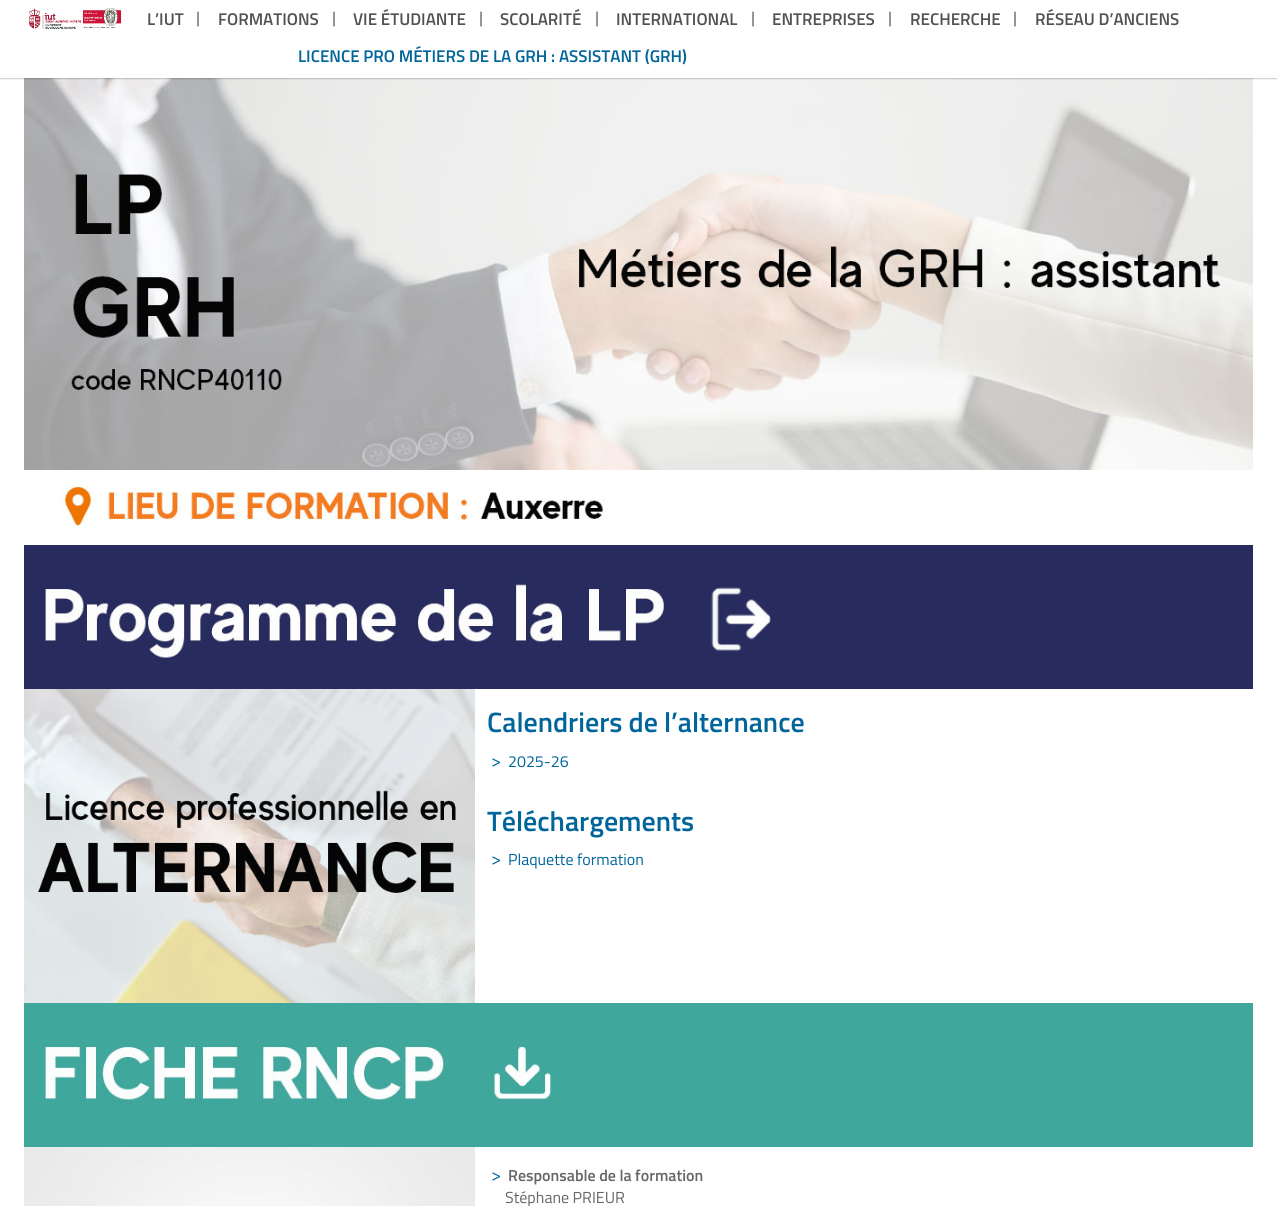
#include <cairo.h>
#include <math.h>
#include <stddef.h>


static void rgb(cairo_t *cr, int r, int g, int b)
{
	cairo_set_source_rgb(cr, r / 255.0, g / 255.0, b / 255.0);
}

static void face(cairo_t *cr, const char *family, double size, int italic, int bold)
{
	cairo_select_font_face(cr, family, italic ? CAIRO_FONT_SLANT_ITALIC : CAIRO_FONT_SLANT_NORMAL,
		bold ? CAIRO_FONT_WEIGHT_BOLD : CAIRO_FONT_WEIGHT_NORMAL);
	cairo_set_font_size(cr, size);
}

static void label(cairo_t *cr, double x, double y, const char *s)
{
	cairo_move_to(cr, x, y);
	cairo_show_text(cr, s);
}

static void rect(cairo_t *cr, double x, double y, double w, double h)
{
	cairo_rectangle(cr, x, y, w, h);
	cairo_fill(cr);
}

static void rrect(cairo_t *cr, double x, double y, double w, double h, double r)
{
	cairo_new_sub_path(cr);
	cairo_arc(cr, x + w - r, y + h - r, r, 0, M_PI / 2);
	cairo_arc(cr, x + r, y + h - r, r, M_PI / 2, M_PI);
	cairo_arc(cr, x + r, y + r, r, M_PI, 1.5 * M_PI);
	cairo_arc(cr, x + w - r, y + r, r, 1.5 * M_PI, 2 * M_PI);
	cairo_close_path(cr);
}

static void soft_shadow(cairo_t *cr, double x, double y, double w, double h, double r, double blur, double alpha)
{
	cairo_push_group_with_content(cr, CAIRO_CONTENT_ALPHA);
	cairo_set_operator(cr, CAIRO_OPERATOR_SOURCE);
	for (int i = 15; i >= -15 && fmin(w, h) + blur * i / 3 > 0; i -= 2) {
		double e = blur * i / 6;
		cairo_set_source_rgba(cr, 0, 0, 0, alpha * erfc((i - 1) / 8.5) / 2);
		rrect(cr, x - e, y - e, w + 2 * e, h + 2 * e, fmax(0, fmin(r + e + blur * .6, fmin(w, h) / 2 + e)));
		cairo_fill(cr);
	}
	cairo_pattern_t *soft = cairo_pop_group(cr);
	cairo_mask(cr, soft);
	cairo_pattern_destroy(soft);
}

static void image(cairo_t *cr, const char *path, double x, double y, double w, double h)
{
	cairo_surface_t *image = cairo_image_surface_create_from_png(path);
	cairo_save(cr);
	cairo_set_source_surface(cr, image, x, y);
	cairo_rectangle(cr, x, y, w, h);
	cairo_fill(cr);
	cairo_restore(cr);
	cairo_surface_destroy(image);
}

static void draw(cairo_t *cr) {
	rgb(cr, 255, 255, 255);
	cairo_paint(cr);
	image(cr, "image1.png", 24, 78, 1229, 392);
	rgb(cr, 0, 0, 0);
	soft_shadow(cr, -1, -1, 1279, 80, 0, 0.5, 0.2);
	rgb(cr, 255, 255, 255);
	rect(cr, 0, 0, 1277, 78);
	image(cr, "image0.png", 28, 8, 94, 21);
	face(cr, "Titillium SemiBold", 17, 0, 0);
	rgb(cr, 81, 83, 82);
	label(cr, 147, 25, "L’IUT");
	face(cr, "Titillium SemiBold", 16, 0, 0);
	rgb(cr, 133, 135, 134);
	label(cr, 196, 23, "|");
	face(cr, "Titillium SemiBold", 17, 0, 0);
	rgb(cr, 81, 83, 82);
	label(cr, 218, 25, "FORMATIONS");
	face(cr, "Titillium SemiBold", 16, 0, 0);
	rgb(cr, 133, 135, 134);
	label(cr, 332, 23, "|");
	face(cr, "Titillium SemiBold", 17, 0, 0);
	rgb(cr, 81, 83, 82);
	label(cr, 353, 25, "VIE ÉTUDIANTE");
	face(cr, "Titillium SemiBold", 16, 0, 0);
	rgb(cr, 133, 135, 134);
	label(cr, 479, 23, "|");
	face(cr, "Titillium SemiBold", 17, 0, 0);
	rgb(cr, 81, 83, 82);
	label(cr, 500, 25, "SCOLARITÉ");
	face(cr, "Titillium SemiBold", 16, 0, 0);
	rgb(cr, 133, 135, 134);
	label(cr, 595, 23, "|");
	face(cr, "Titillium SemiBold", 17, 0, 0);
	rgb(cr, 81, 83, 82);
	label(cr, 616, 25, "INTERNATIONAL");
	face(cr, "Titillium SemiBold", 16, 0, 0);
	rgb(cr, 133, 135, 134);
	label(cr, 751, 23, "|");
	face(cr, "Titillium SemiBold", 17, 0, 0);
	rgb(cr, 81, 83, 82);
	label(cr, 772, 25, "ENTREPRISES");
	face(cr, "Titillium SemiBold", 16, 0, 0);
	rgb(cr, 133, 135, 134);
	label(cr, 888, 23, "|");
	face(cr, "Titillium SemiBold", 17, 0, 0);
	rgb(cr, 81, 83, 82);
	label(cr, 910, 25, "RECHERCHE");
	face(cr, "Titillium SemiBold", 16, 0, 0);
	rgb(cr, 133, 135, 134);
	label(cr, 1013, 23, "|");
	face(cr, "Titillium SemiBold", 17, 0, 0);
	rgb(cr, 81, 83, 82);
	label(cr, 1035, 25, "RÉSEAU D’ANCIENS");
	rgb(cr, 0, 101, 155);
	label(cr, 298, 62, "LICENCE PRO MÉTIERS DE LA GRH : ASSISTANT (GRH)");
	image(cr, "image2.png", 60, 485, 547, 43);
	image(cr, "image3.png", 24, 545, 1229, 144);
	image(cr, "image4.png", 24, 689, 451, 314);
	face(cr, "Titillium SemiBold", 28, 0, 0);
	label(cr, 487, 732, "Calendriers de l’alternance");
	face(cr, "Titillium", 18, 0, 0);
	label(cr, 491, 767, ">");
	face(cr, "Titillium", 16, 0, 0);
	label(cr, 508, 767, "2025-26");
	face(cr, "Titillium SemiBold", 28, 0, 0);
	label(cr, 487, 831, "Téléchargements");
	face(cr, "Titillium", 18, 0, 0);
	label(cr, 491, 865, ">");
	face(cr, "Titillium", 16, 0, 0);
	label(cr, 508, 865, "Plaquette formation");
	image(cr, "image5.png", 24, 1003, 1229, 144);
	image(cr, "image6.png", 24, 1147, 451, 59);
	face(cr, "Titillium", 18, 0, 0);
	label(cr, 491, 1181, ">");
	face(cr, "Titillium SemiBold", 16, 0, 0);
	rgb(cr, 102, 102, 102);
	label(cr, 508, 1181, "Responsable de la formation");
	face(cr, "Titillium", 16, 0, 0);
	label(cr, 505, 1203, "Stéphane PRIEUR");
}

int main(void) {
	cairo_surface_t *surface = cairo_image_surface_create(CAIRO_FORMAT_RGB24, 1277, 1206);
	cairo_t *cr = cairo_create(surface);
	cairo_font_options_t *options = cairo_font_options_create();
	cairo_font_options_set_hint_metrics(options, CAIRO_HINT_METRICS_OFF);
	cairo_font_options_set_hint_style(options, CAIRO_HINT_STYLE_NONE);
	cairo_set_font_options(cr, options);
	cairo_set_miter_limit(cr, 4);
	draw(cr);
	cairo_surface_write_to_png(surface, "render.png");
	cairo_font_options_destroy(options);
	cairo_destroy(cr);
	cairo_surface_destroy(surface);
	return 0;
}
